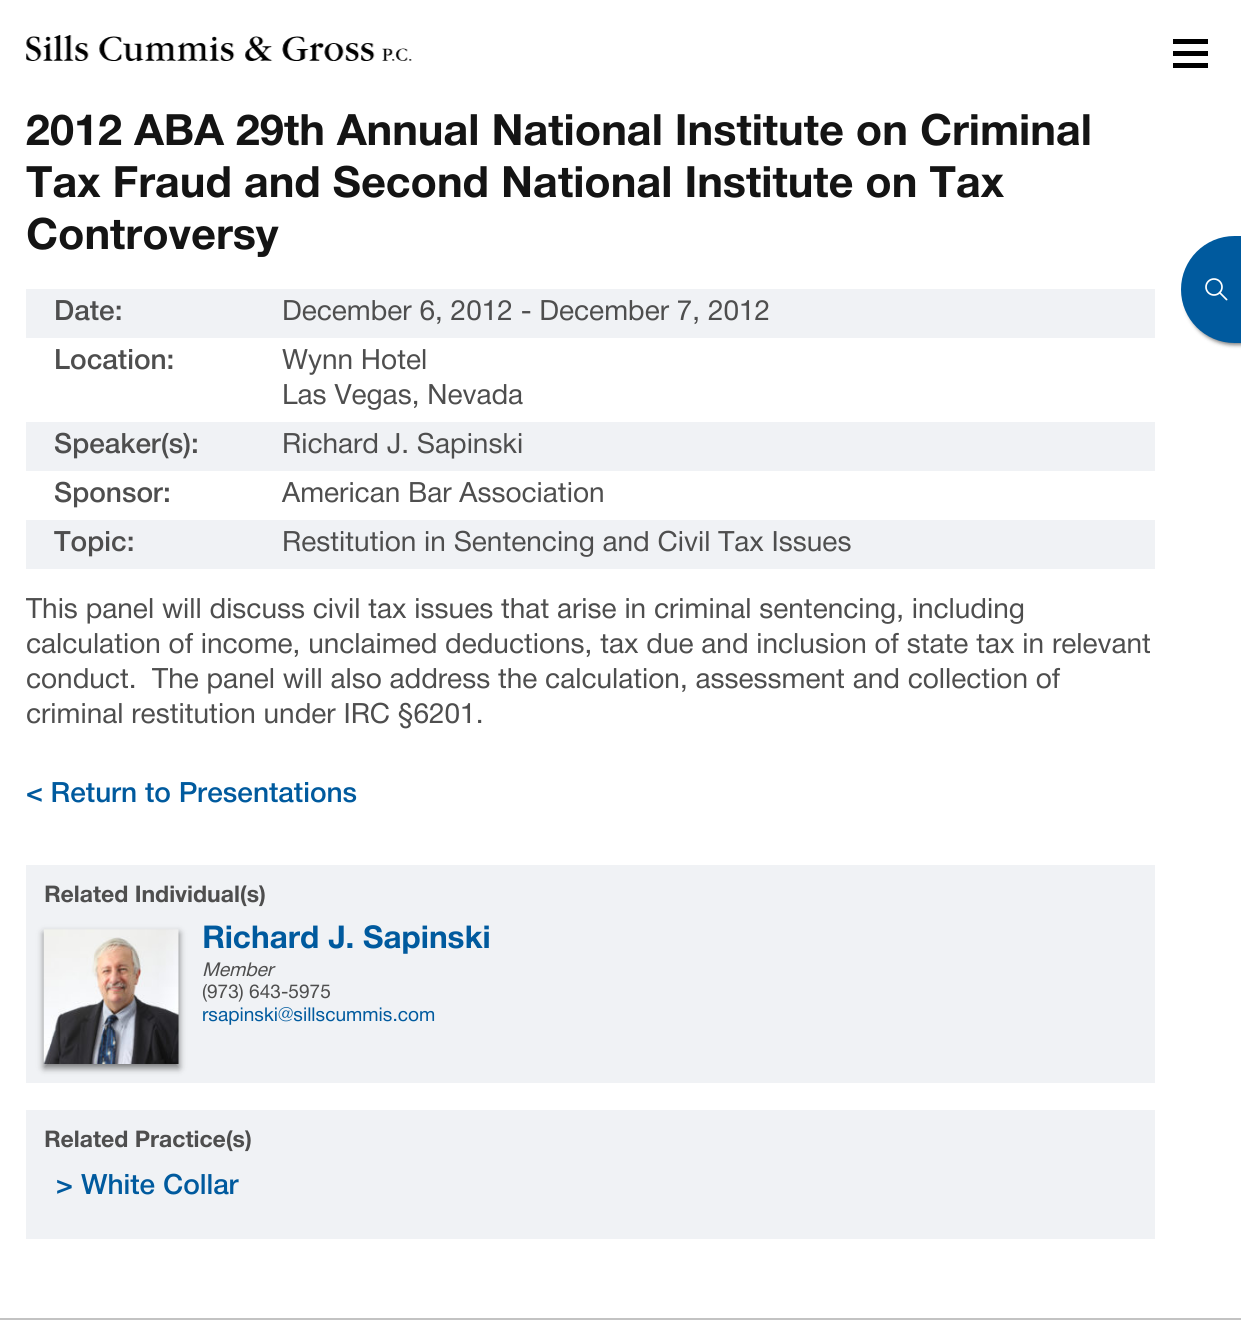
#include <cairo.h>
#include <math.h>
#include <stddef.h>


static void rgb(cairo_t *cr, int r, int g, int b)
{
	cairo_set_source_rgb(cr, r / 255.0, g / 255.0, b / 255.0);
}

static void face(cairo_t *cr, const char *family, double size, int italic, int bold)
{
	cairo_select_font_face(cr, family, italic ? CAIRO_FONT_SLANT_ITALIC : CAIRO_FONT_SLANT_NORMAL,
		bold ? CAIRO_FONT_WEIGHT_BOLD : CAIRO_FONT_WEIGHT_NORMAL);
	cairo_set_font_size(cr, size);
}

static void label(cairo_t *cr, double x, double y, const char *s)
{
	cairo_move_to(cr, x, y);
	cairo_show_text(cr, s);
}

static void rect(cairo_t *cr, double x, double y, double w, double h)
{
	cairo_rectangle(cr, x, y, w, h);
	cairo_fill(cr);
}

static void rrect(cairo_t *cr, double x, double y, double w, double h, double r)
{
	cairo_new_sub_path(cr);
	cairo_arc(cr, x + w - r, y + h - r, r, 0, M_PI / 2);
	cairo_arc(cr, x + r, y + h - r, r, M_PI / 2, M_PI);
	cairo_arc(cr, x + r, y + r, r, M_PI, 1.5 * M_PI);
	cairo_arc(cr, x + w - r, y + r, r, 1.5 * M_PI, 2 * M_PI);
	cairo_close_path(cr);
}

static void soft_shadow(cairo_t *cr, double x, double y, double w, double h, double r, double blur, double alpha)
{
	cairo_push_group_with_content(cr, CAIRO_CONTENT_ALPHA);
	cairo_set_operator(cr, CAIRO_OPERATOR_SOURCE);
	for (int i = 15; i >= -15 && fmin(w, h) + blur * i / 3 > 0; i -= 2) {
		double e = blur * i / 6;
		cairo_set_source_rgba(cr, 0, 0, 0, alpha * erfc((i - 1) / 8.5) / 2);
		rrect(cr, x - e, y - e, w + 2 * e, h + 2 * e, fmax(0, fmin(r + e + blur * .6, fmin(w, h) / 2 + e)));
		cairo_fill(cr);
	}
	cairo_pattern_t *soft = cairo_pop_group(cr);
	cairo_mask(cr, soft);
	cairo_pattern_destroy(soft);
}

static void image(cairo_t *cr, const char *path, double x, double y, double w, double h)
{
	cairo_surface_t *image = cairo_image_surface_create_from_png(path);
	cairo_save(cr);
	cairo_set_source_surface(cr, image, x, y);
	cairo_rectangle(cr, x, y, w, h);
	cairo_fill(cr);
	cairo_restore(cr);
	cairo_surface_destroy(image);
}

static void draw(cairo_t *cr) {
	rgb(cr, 255, 255, 255);
	cairo_paint(cr);
	image(cr, "image0.png", 26, 35, 386, 26);
	rgb(cr, 0, 0, 0);
	rect(cr, 1173, 39, 35, 5);
	rect(cr, 1173, 51, 35, 5);
	rect(cr, 1173, 63, 35, 5);
	face(cr, "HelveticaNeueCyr", 43.25, 0, 1);
	rgb(cr, 20, 20, 20);
	label(cr, 26, 145, "2012 ABA 29th Annual National Institute on Criminal");
	label(cr, 26, 197, "Tax Fraud and Second National Institute on Tax");
	label(cr, 26, 249, "Controversy");
	rgb(cr, 240, 242, 245);
	rect(cr, 26, 289, 1129, 49);
	face(cr, "HelveticaNeueCyr Medium", 28, 0, 0);
	rgb(cr, 78, 78, 78);
	label(cr, 54, 320, "Date:");
	face(cr, "HelveticaNeueCyr", 28, 0, 0);
	label(cr, 282, 320, "December 6, 2012 - December 7, 2012");
	face(cr, "HelveticaNeueCyr Medium", 28, 0, 0);
	label(cr, 54, 369, "Location:");
	face(cr, "HelveticaNeueCyr", 28, 0, 0);
	label(cr, 282, 369, "Wynn Hotel");
	label(cr, 282, 404, "Las Vegas, Nevada");
	rgb(cr, 240, 242, 245);
	rect(cr, 26, 422, 1129, 49);
	face(cr, "HelveticaNeueCyr Medium", 28, 0, 0);
	rgb(cr, 78, 78, 78);
	label(cr, 54, 453, "Speaker(s):");
	face(cr, "HelveticaNeueCyr", 28, 0, 0);
	label(cr, 282, 453, "Richard J. Sapinski");
	face(cr, "HelveticaNeueCyr Medium", 28, 0, 0);
	label(cr, 54, 502, "Sponsor:");
	face(cr, "HelveticaNeueCyr", 28, 0, 0);
	label(cr, 282, 502, "American Bar Association");
	rgb(cr, 240, 242, 245);
	rect(cr, 26, 520, 1129, 49);
	face(cr, "HelveticaNeueCyr Medium", 28, 0, 0);
	rgb(cr, 78, 78, 78);
	label(cr, 54, 551, "Topic:");
	face(cr, "HelveticaNeueCyr", 28, 0, 0);
	label(cr, 282, 551, "Restitution in Sentencing and Civil Tax Issues");
	label(cr, 26, 618, "This panel will discuss civil tax issues that arise in criminal sentencing, including");
	label(cr, 26, 653, "calculation of income, unclaimed deductions, tax due and inclusion of state tax in relevant");
	label(cr, 26, 688, "conduct.  The panel will also address the calculation, assessment and collection of");
	label(cr, 26, 723, "criminal restitution under IRC §6201.");
	face(cr, "HelveticaNeueCyr Medium", 28, 0, 0);
	rgb(cr, 0, 90, 158);
	label(cr, 26, 802, "< Return to Presentations");
	rgb(cr, 240, 242, 245);
	rect(cr, 26, 865, 1129, 218);
	face(cr, "HelveticaNeueCyr", 23, 0, 1);
	rgb(cr, 78, 78, 78);
	label(cr, 44, 902, "Related Individual(s)");
	rgb(cr, 0, 0, 0);
	soft_shadow(cr, 44, 933, 135, 135, 0, 3.5, 0.5);
	image(cr, "image1.png", 43, 929, 136, 135);
	face(cr, "HelveticaNeueCyr", 31.5, 0, 1);
	rgb(cr, 0, 90, 158);
	label(cr, 202, 948, "Richard J. Sapinski");
	face(cr, "HelveticaNeueCyr", 19.1, 1, 0);
	rgb(cr, 78, 78, 78);
	label(cr, 202, 976, "Member");
	face(cr, "HelveticaNeueCyr", 19.1, 0, 0);
	label(cr, 202, 998, "(973) 643-5975");
	rgb(cr, 0, 90, 158);
	label(cr, 202, 1021, "rsapinski@sillscummis.com");
	rgb(cr, 240, 242, 245);
	rect(cr, 26, 1110, 1129, 129);
	face(cr, "HelveticaNeueCyr", 23, 0, 1);
	rgb(cr, 78, 78, 78);
	label(cr, 44, 1147, "Related Practice(s)");
	face(cr, "HelveticaNeueCyr Medium", 28, 0, 0);
	rgb(cr, 0, 90, 158);
	label(cr, 56, 1194, ">");
	label(cr, 81, 1194, "White Collar");
	rgb(cr, 0, 0, 0);
	soft_shadow(cr, 1185, 245, 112, 100, 50, 2, 0.5);
	rgb(cr, 0, 90, 158);
	rrect(cr, 1181, 236, 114, 107, 53.5);
	cairo_fill(cr);
	image(cr, "image2.png", 1205, 278, 23, 23);
	rgb(cr, 195, 195, 195);
	rect(cr, 0, 1318, 1241, 2);
}

int main(void) {
	cairo_surface_t *surface = cairo_image_surface_create(CAIRO_FORMAT_RGB24, 1241, 1333);
	cairo_t *cr = cairo_create(surface);
	cairo_font_options_t *options = cairo_font_options_create();
	cairo_font_options_set_hint_metrics(options, CAIRO_HINT_METRICS_OFF);
	cairo_font_options_set_hint_style(options, CAIRO_HINT_STYLE_NONE);
	cairo_set_font_options(cr, options);
	cairo_set_miter_limit(cr, 4);
	draw(cr);
	cairo_surface_write_to_png(surface, "render.png");
	cairo_font_options_destroy(options);
	cairo_destroy(cr);
	cairo_surface_destroy(surface);
	return 0;
}
